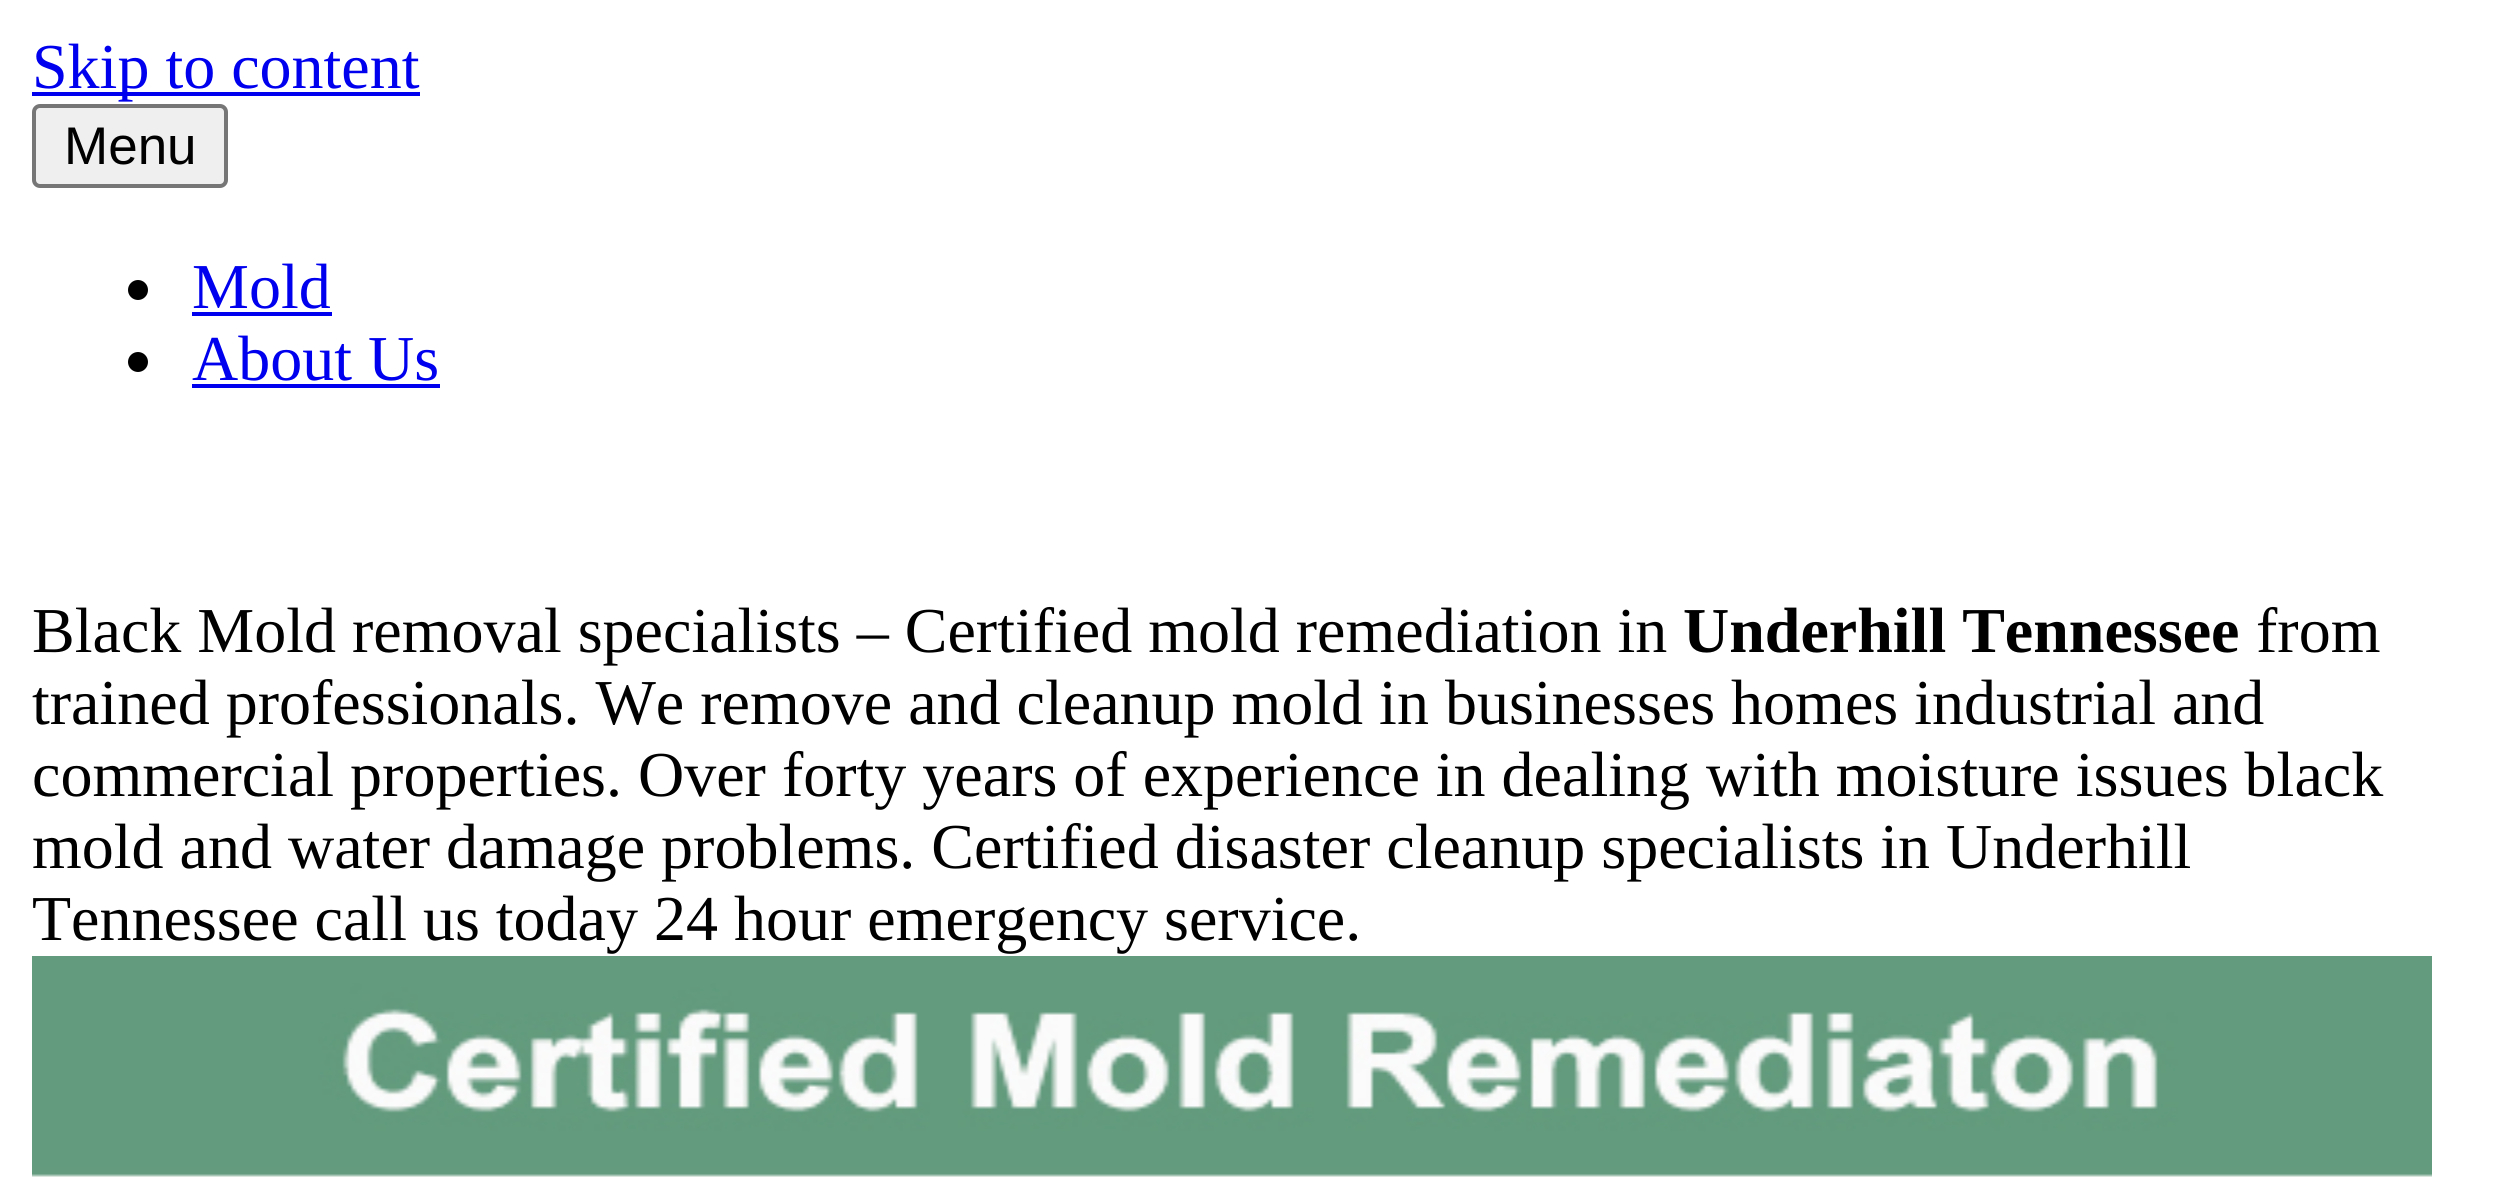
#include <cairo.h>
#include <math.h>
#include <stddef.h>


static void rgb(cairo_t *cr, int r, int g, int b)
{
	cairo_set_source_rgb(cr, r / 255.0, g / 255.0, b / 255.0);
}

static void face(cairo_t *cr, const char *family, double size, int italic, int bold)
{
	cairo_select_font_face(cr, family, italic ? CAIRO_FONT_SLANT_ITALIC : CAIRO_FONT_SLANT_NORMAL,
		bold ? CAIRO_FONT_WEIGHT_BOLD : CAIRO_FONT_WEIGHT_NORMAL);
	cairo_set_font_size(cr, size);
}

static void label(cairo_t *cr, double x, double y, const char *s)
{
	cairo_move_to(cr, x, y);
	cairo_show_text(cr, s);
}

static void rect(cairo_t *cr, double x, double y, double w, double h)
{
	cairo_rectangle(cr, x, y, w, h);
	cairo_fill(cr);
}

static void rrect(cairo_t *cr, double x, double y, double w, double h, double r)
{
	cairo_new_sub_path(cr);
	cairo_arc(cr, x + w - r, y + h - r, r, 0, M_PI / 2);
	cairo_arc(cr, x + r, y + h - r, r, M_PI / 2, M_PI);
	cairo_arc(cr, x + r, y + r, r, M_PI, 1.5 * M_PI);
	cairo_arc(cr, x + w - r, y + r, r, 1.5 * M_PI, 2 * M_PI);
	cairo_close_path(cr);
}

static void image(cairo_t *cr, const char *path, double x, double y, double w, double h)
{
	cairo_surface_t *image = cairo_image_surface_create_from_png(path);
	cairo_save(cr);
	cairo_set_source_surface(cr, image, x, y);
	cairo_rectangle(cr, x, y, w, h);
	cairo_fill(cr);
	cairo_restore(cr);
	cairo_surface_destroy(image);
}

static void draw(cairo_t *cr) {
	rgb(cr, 255, 255, 255);
	cairo_paint(cr);
	rgb(cr, 0, 0, 238);
	rect(cr, 32, 92, 388, 4);
	face(cr, "Liberation Serif", 64, 0, 0);
	label(cr, 32, 88, "Skip to content");
	rgb(cr, 239, 239, 239);
	rrect(cr, 34, 106, 192, 80, 6);
	cairo_fill_preserve(cr);
	rgb(cr, 118, 118, 118);
	cairo_set_line_width(cr, 4);
	cairo_stroke(cr);
	face(cr, "Liberation Sans", 53, 0, 0);
	rgb(cr, 0, 0, 0);
	label(cr, 64, 164, "Menu");
	cairo_new_path(cr);
	cairo_arc(cr, 138, 290, 10, 0, 2 * M_PI);
	cairo_fill(cr);
	face(cr, "Liberation Serif", 64, 0, 0);
	rgb(cr, 0, 0, 238);
	label(cr, 192, 308, "Mold");
	rect(cr, 192, 312, 140, 4);
	rgb(cr, 0, 0, 0);
	cairo_new_path(cr);
	cairo_arc(cr, 138, 362, 10, 0, 2 * M_PI);
	cairo_fill(cr);
	rgb(cr, 0, 0, 238);
	label(cr, 192, 380, "About Us");
	rect(cr, 192, 384, 248, 4);
	rgb(cr, 0, 0, 0);
	label(cr, 32, 652, "Black Mold removal specialists – Certified mold remediation in");
	face(cr, "Liberation Serif", 64, 0, 1);
	label(cr, 1683, 652, "Underhill Tennessee");
	face(cr, "Liberation Serif", 64, 0, 0);
	label(cr, 2256, 652, "from");
	label(cr, 32, 724, "trained professionals. We remove and cleanup mold in businesses homes industrial and");
	label(cr, 32, 796, "commercial properties. Over forty years of experience in dealing with moisture issues black");
	label(cr, 32, 868, "mold and water damage problems. Certified disaster cleanup specialists in Underhill");
	label(cr, 32, 940, "Tennessee call us today 24 hour emergency service.");
	image(cr, "image0.png", 32, 956, 2400, 221);
}

int main(void) {
	cairo_surface_t *surface = cairo_image_surface_create(CAIRO_FORMAT_RGB24, 2495, 1185);
	cairo_t *cr = cairo_create(surface);
	cairo_font_options_t *options = cairo_font_options_create();
	cairo_font_options_set_hint_metrics(options, CAIRO_HINT_METRICS_OFF);
	cairo_font_options_set_hint_style(options, CAIRO_HINT_STYLE_NONE);
	cairo_set_font_options(cr, options);
	cairo_set_miter_limit(cr, 4);
	draw(cr);
	cairo_surface_write_to_png(surface, "render.png");
	cairo_font_options_destroy(options);
	cairo_destroy(cr);
	cairo_surface_destroy(surface);
	return 0;
}
